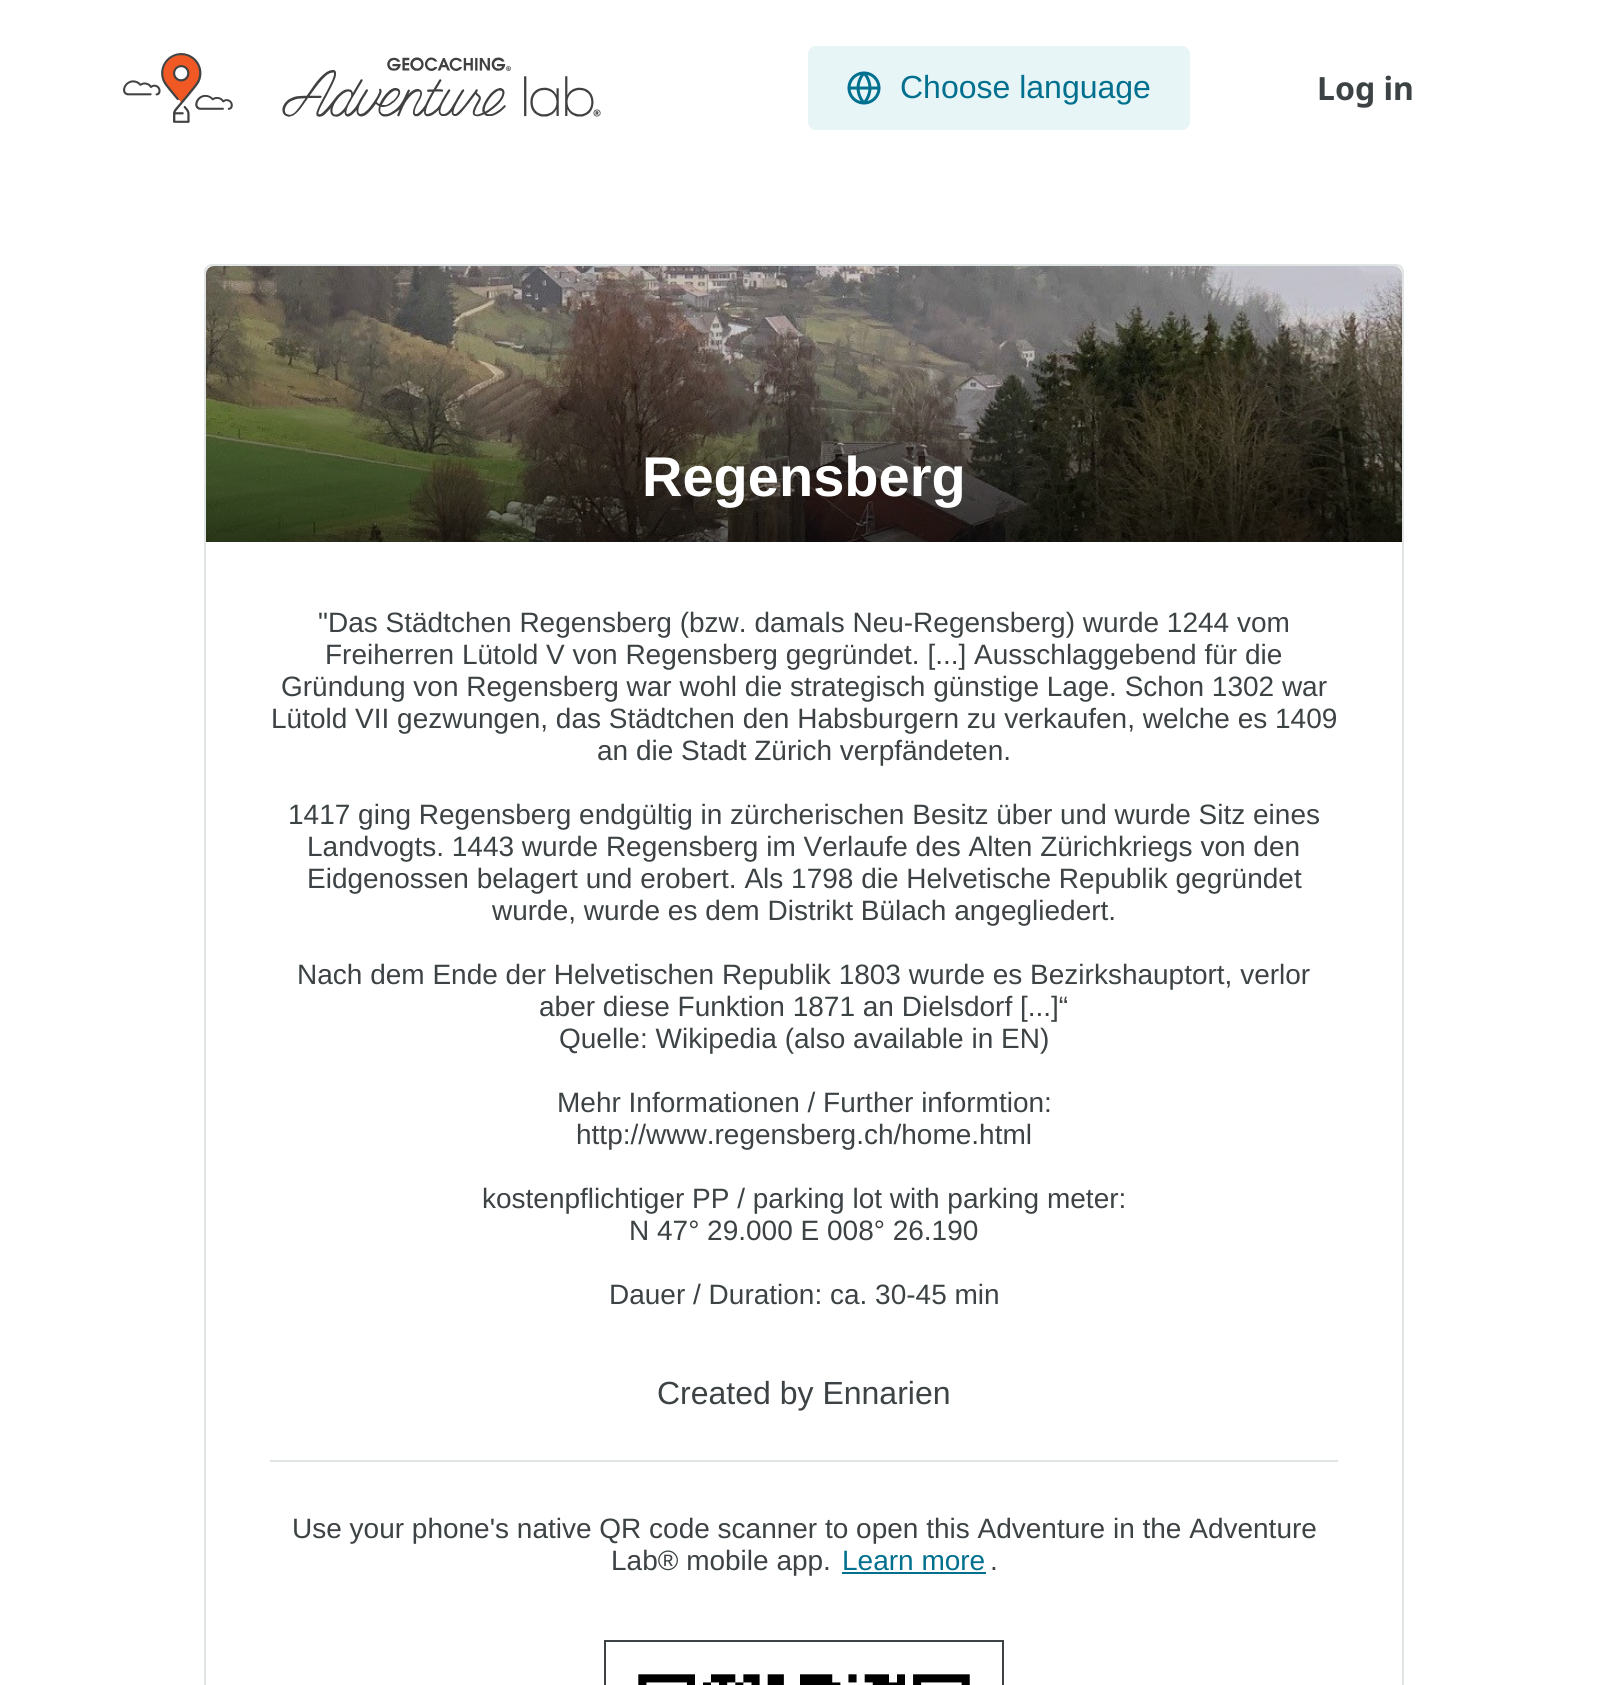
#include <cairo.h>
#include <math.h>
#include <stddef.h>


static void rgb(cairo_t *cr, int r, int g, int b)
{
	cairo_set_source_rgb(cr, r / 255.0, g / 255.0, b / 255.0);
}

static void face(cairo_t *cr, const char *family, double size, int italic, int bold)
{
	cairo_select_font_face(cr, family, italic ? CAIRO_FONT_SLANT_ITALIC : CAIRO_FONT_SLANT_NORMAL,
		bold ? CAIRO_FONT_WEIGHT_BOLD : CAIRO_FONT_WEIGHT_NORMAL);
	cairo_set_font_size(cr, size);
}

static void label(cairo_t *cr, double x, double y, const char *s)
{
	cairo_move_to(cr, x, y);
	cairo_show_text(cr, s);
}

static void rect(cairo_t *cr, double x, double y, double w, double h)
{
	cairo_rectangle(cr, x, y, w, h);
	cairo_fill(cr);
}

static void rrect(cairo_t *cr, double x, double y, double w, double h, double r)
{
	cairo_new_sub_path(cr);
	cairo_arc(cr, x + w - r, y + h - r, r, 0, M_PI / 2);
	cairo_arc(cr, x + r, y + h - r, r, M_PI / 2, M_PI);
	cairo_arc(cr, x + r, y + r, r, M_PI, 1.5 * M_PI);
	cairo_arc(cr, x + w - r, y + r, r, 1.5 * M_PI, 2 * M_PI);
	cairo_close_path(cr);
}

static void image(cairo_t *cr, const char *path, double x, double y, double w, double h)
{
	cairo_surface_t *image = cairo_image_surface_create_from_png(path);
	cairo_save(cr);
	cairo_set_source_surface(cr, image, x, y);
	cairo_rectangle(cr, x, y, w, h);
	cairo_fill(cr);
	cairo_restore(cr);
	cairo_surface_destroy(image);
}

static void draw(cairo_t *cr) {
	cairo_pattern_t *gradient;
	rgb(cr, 255, 255, 255);
	cairo_paint(cr);
	image(cr, "image0.png", 123, 53, 110, 70);
	image(cr, "image1.png", 282, 57, 319, 60);
	rgb(cr, 231, 245, 247);
	rrect(cr, 808, 46, 382, 84, 8);
	cairo_fill(cr);
	image(cr, "image2.png", 847, 71, 34, 34);
	face(cr, "Liberation Sans", 32, 0, 0);
	rgb(cr, 0, 112, 142);
	label(cr, 900, 98, "Choose language");
	face(cr, "Noto Sans", 32, 0, 1);
	rgb(cr, 61, 67, 69);
	label(cr, 1317, 100, "Log in");
	cairo_new_path(cr);
	cairo_move_to(cr, 212, 265);
	cairo_line_to(cr, 1396, 265);
	cairo_curve_to(cr, 1400, 265, 1403, 268, 1403, 272);
	cairo_line_to(cr, 1403, 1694);
	cairo_line_to(cr, 205, 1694);
	cairo_line_to(cr, 205, 272);
	cairo_curve_to(cr, 205, 268, 208, 265, 212, 265);
	cairo_close_path(cr);
	rgb(cr, 224, 228, 229);
	cairo_stroke(cr);
	image(cr, "image3.png", 206, 266, 1196, 276);
	gradient = cairo_pattern_create_linear(804, 266, 804, 542);
	cairo_pattern_add_color_stop_rgba(gradient, 0.25, 0, 0, 0, 0);
	cairo_pattern_add_color_stop_rgba(gradient, 1, 0, 0, 0, 0.6);
	cairo_set_source(cr, gradient);
	cairo_pattern_destroy(gradient);
	rect(cr, 206, 342, 1196, 200);
	face(cr, "Liberation Sans", 56, 0, 1);
	rgb(cr, 255, 255, 255);
	label(cr, 642, 496, "Regensberg");
	face(cr, "Liberation Sans", 28, 0, 0);
	rgb(cr, 61, 67, 69);
	label(cr, 318, 632, "\"Das Städtchen Regensberg (bzw. damals Neu-Regensberg) wurde 1244 vom");
	label(cr, 325, 664, "Freiherren Lütold V von Regensberg gegründet. [...] Ausschlaggebend für die");
	label(cr, 281, 696, "Gründung von Regensberg war wohl die strategisch günstige Lage. Schon 1302 war");
	label(cr, 271, 728, "Lütold VII gezwungen, das Städtchen den Habsburgern zu verkaufen, welche es 1409");
	label(cr, 597, 760, "an die Stadt Zürich verpfändeten.");
	label(cr, 288, 824, "1417 ging Regensberg endgültig in zürcherischen Besitz über und wurde Sitz eines");
	label(cr, 307, 856, "Landvogts. 1443 wurde Regensberg im Verlaufe des Alten Zürichkriegs von den");
	label(cr, 307, 888, "Eidgenossen belagert und erobert. Als 1798 die Helvetische Republik gegründet");
	label(cr, 492, 920, "wurde, wurde es dem Distrikt Bülach angegliedert.");
	label(cr, 297, 984, "Nach dem Ende der Helvetischen Republik 1803 wurde es Bezirkshauptort, verlor");
	label(cr, 539, 1016, "aber diese Funktion 1871 an Dielsdorf [...]“");
	label(cr, 559, 1048, "Quelle: Wikipedia (also available in EN)");
	label(cr, 557, 1112, "Mehr Informationen / Further informtion:");
	label(cr, 576, 1144, "http://www.regensberg.ch/home.html");
	label(cr, 482, 1208, "kostenpflichtiger PP / parking lot with parking meter:");
	label(cr, 629, 1240, "N 47° 29.000 E 008° 26.190");
	label(cr, 609, 1304, "Dauer / Duration: ca. 30-45 min");
	face(cr, "Liberation Sans", 32, 0, 0);
	label(cr, 657, 1404, "Created by Ennarien");
	rgb(cr, 224, 228, 229);
	rect(cr, 270, 1460, 1068, 2);
	face(cr, "Liberation Sans", 28, 0, 0);
	rgb(cr, 61, 67, 69);
	label(cr, 292, 1538, "Use your phone's native QR code scanner to open this Adventure in the Adventure");
	label(cr, 611, 1570, "Lab® mobile app.");
	rgb(cr, 0, 112, 142);
	label(cr, 842, 1570, "Learn more");
	rgb(cr, 61, 67, 69);
	label(cr, 990, 1570, ".");
	rgb(cr, 0, 112, 142);
	rect(cr, 842, 1572, 144, 2);
	cairo_rectangle(cr, 605, 1641, 398, 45);
	rgb(cr, 61, 67, 69);
	cairo_stroke(cr);
	image(cr, "image4.png", 638, 1674, 332, 11);
}

int main(void) {
	cairo_surface_t *surface = cairo_image_surface_create(CAIRO_FORMAT_RGB24, 1607, 1685);
	cairo_t *cr = cairo_create(surface);
	cairo_font_options_t *options = cairo_font_options_create();
	cairo_font_options_set_hint_metrics(options, CAIRO_HINT_METRICS_OFF);
	cairo_font_options_set_hint_style(options, CAIRO_HINT_STYLE_NONE);
	cairo_set_font_options(cr, options);
	cairo_set_miter_limit(cr, 4);
	draw(cr);
	cairo_surface_write_to_png(surface, "render.png");
	cairo_font_options_destroy(options);
	cairo_destroy(cr);
	cairo_surface_destroy(surface);
	return 0;
}
